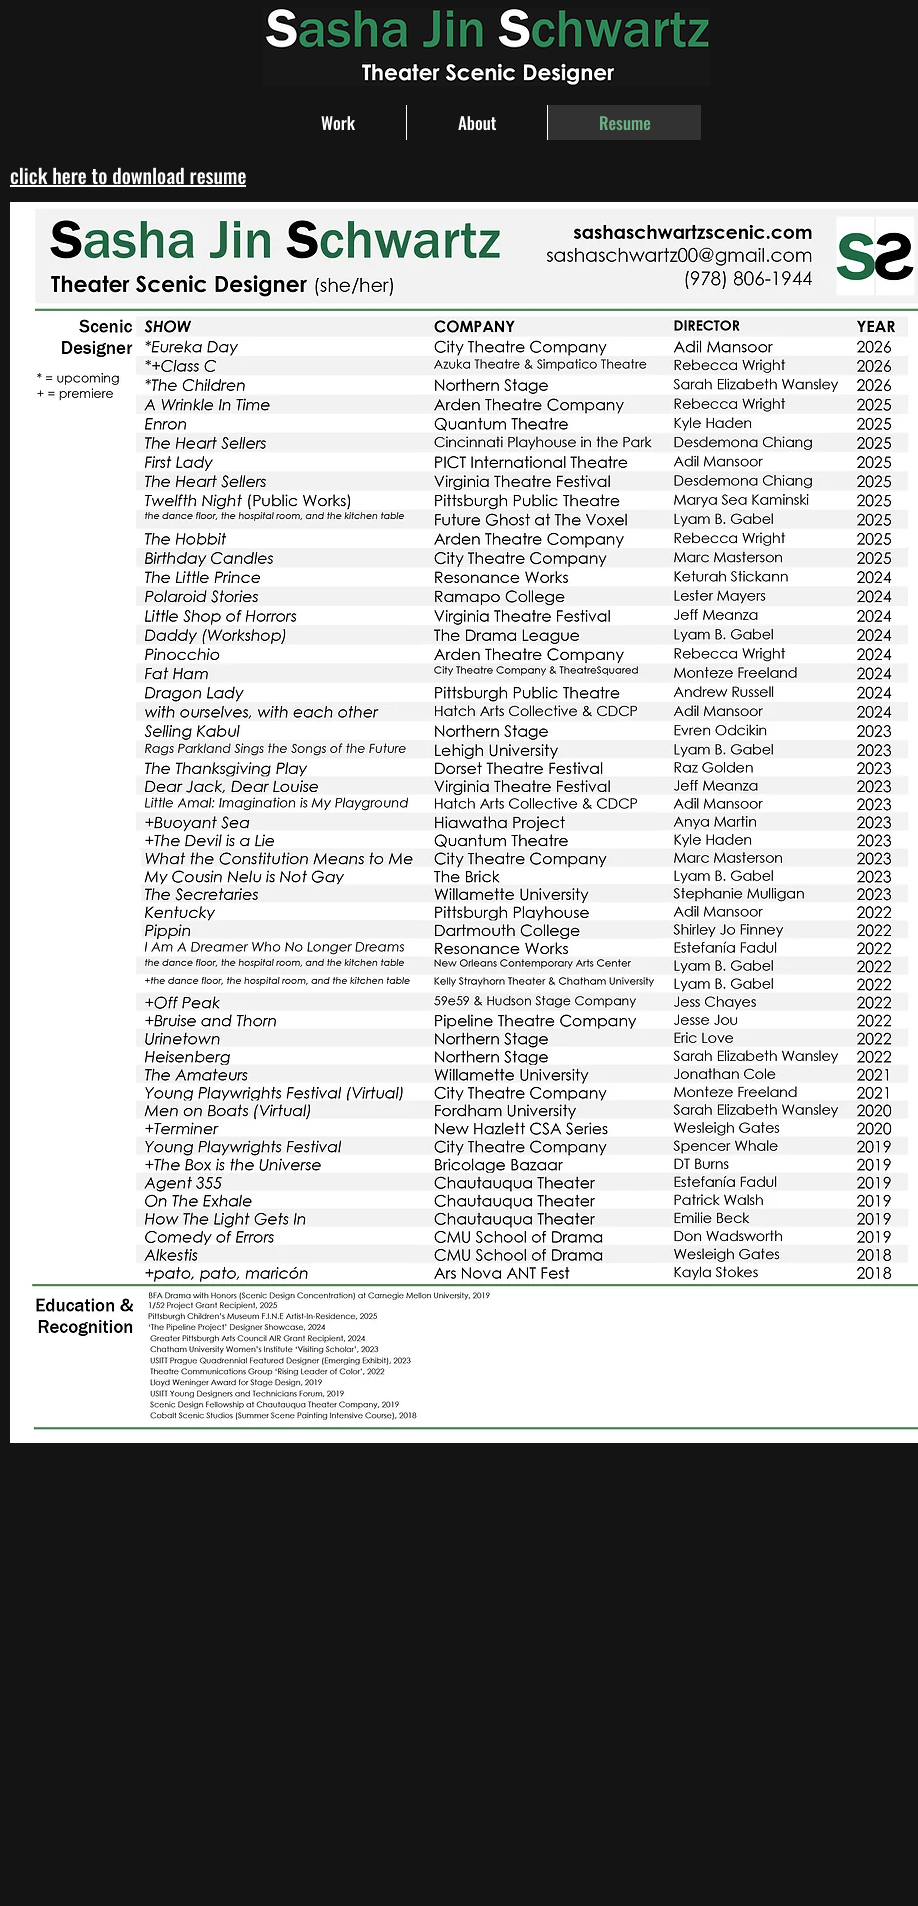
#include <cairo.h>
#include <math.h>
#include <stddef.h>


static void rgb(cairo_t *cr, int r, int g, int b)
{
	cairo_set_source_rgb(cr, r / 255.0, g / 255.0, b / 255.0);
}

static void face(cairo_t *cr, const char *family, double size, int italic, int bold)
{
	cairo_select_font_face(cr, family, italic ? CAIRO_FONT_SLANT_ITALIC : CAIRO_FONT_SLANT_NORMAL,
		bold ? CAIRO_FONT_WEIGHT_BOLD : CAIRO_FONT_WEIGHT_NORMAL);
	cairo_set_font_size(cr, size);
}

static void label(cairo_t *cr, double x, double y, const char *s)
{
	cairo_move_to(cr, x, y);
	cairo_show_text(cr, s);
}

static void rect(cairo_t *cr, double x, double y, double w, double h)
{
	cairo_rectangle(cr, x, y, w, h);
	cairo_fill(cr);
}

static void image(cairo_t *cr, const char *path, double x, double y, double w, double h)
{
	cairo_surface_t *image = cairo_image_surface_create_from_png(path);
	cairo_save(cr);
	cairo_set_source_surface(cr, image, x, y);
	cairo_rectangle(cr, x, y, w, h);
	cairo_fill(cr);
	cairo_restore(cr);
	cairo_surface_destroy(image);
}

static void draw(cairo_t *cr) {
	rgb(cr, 20, 20, 20);
	cairo_paint(cr);
	image(cr, "image0.png", 263, 8, 447, 78);
	face(cr, "Oswald Medium", 17, 0, 0);
	rgb(cr, 255, 255, 255);
	label(cr, 321, 130, "Work");
	rect(cr, 406, 105, 1, 35);
	label(cr, 458, 130, "About");
	rgb(cr, 50, 50, 50);
	rect(cr, 548, 105, 153, 35);
	rgb(cr, 255, 255, 255);
	rect(cr, 547, 105, 1, 35);
	rgb(cr, 109, 176, 131);
	label(cr, 599, 130, "Resume");
	face(cr, "Oswald Medium", 20, 0, 0);
	rgb(cr, 255, 255, 255);
	label(cr, 10, 184, "click here to download resume");
	rect(cr, 10, 185, 236, 2);
	image(cr, "image1.png", 10, 202, 908, 1241);
}

int main(void) {
	cairo_surface_t *surface = cairo_image_surface_create(CAIRO_FORMAT_RGB24, 918, 1906);
	cairo_t *cr = cairo_create(surface);
	cairo_font_options_t *options = cairo_font_options_create();
	cairo_font_options_set_hint_metrics(options, CAIRO_HINT_METRICS_OFF);
	cairo_font_options_set_hint_style(options, CAIRO_HINT_STYLE_NONE);
	cairo_set_font_options(cr, options);
	cairo_set_miter_limit(cr, 4);
	draw(cr);
	cairo_surface_write_to_png(surface, "render.png");
	cairo_font_options_destroy(options);
	cairo_destroy(cr);
	cairo_surface_destroy(surface);
	return 0;
}
